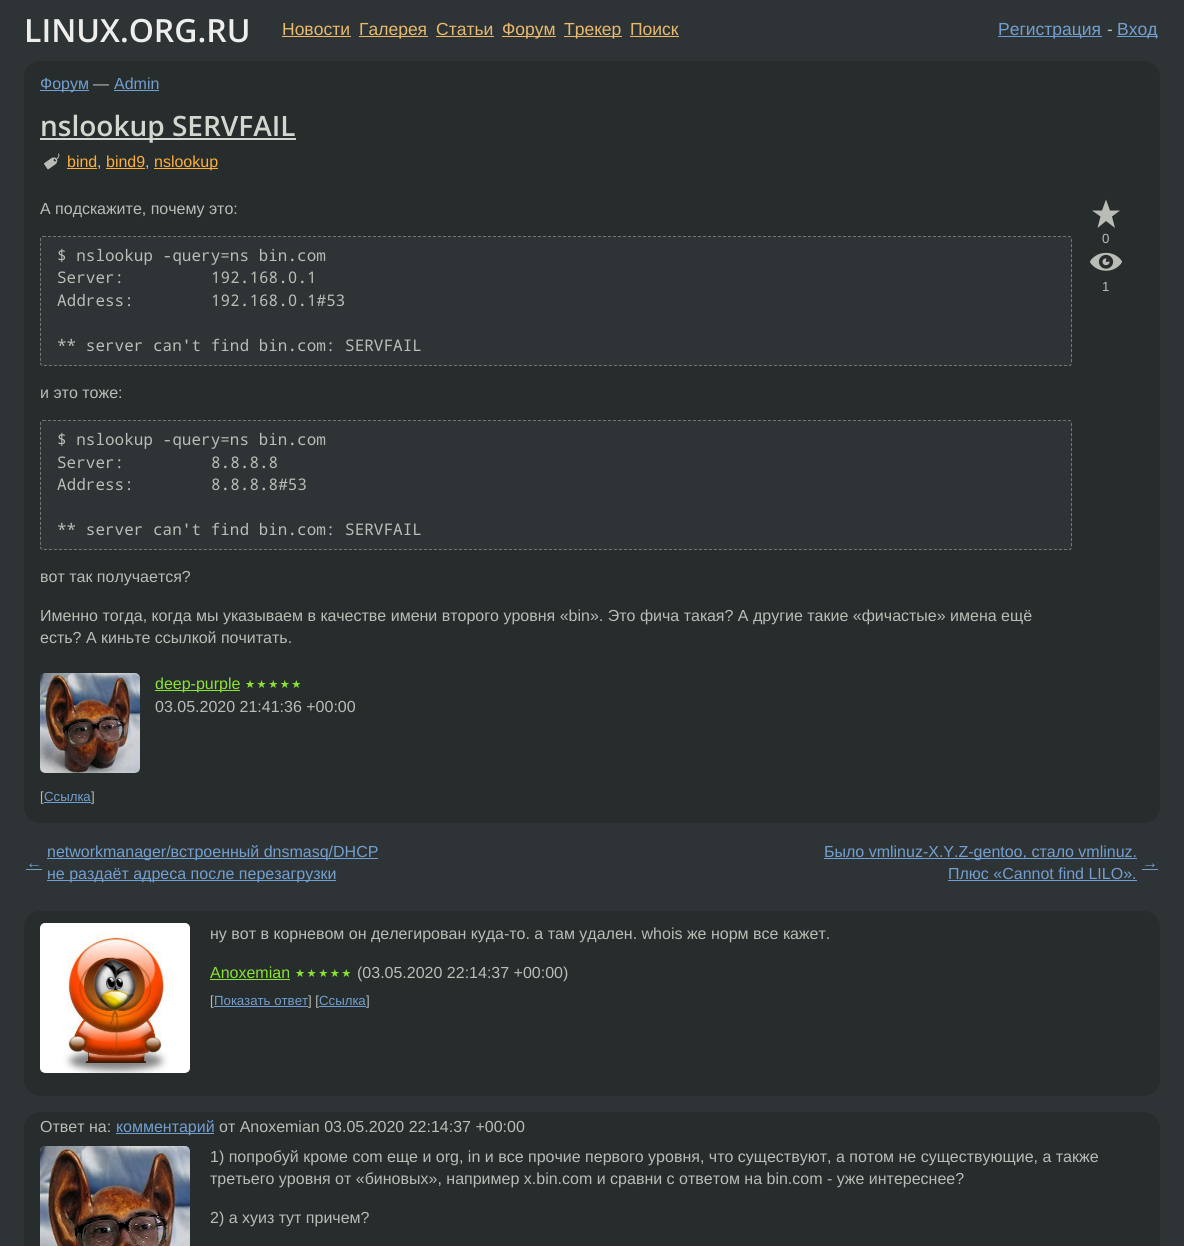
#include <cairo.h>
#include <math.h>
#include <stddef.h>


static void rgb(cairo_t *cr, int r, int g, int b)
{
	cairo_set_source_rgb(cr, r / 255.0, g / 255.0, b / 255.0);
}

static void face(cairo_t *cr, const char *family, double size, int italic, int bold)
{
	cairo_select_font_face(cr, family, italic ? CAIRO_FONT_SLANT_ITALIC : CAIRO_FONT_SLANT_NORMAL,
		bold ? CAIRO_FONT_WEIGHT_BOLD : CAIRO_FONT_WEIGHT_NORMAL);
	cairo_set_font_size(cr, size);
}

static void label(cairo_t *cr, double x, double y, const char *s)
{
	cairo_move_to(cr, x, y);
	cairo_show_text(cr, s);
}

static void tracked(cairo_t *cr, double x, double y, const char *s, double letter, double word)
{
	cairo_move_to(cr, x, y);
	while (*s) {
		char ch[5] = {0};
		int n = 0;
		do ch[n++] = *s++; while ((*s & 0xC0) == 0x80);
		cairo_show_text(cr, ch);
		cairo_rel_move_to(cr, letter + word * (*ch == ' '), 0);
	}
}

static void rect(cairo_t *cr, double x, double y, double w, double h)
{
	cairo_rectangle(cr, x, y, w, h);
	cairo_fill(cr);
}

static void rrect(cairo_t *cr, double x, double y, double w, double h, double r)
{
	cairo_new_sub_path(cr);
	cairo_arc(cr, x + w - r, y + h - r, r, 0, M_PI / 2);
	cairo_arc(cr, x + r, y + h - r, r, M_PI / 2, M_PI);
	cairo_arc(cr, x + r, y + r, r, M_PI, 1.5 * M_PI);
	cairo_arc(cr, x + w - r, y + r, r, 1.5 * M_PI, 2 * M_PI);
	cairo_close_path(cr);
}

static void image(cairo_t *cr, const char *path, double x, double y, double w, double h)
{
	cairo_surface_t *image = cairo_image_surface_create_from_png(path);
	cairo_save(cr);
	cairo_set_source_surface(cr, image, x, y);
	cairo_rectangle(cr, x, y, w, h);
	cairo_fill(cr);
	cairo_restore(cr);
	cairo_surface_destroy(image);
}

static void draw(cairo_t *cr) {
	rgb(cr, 46, 52, 54);
	cairo_paint(cr);
	face(cr, "Open Sans SemiBold", 32, 0, 0);
	rgb(cr, 238, 238, 236);
	label(cr, 24, 42, "LINUX.ORG.RU");
	face(cr, "Liberation Sans", 17.5, 0, 0);
	rgb(cr, 233, 185, 110);
	label(cr, 282, 35, "Новости");
	rect(cr, 282, 36, 69, 1);
	rect(cr, 359, 36, 69, 1);
	label(cr, 359, 35, "Галерея");
	label(cr, 436, 35, "Статьи");
	rect(cr, 436, 36, 58, 1);
	rect(cr, 502, 36, 54, 1);
	label(cr, 502, 35, "Форум");
	rect(cr, 564, 36, 58, 1);
	label(cr, 564, 35, "Трекер");
	label(cr, 630, 35, "Поиск");
	rect(cr, 630, 36, 49, 1);
	rgb(cr, 114, 159, 207);
	rect(cr, 998, 36, 104, 1);
	label(cr, 998, 35, "Регистрация");
	rgb(cr, 186, 189, 182);
	label(cr, 1107, 35, "-");
	rgb(cr, 114, 159, 207);
	rect(cr, 1117, 36, 41, 1);
	label(cr, 1117, 35, "Вход");
	rgb(cr, 39, 44, 45);
	rrect(cr, 24, 61, 1136, 762, 16);
	cairo_fill(cr);
	rgb(cr, 114, 159, 207);
	rect(cr, 40, 90, 49, 1);
	face(cr, "Liberation Sans", 16, 0, 0);
	label(cr, 40, 89, "Форум");
	rgb(cr, 186, 189, 182);
	label(cr, 93, 89, "—");
	rgb(cr, 114, 159, 207);
	label(cr, 114, 89, "Admin");
	rect(cr, 114, 90, 45, 1);
	rgb(cr, 211, 215, 207);
	rect(cr, 40, 138, 256, 2);
	face(cr, "Open Sans SemiBold", 28, 0, 0);
	label(cr, 40, 136, "nslookup SERVFAIL");
	image(cr, "image0.png", 44, 153, 16, 17);
	face(cr, "Liberation Sans", 16, 0, 0);
	rgb(cr, 252, 175, 62);
	label(cr, 67, 167, "bind");
	rect(cr, 67, 168, 30, 1);
	rgb(cr, 186, 189, 182);
	label(cr, 97, 167, ",");
	rgb(cr, 252, 175, 62);
	label(cr, 106, 167, "bind9");
	rect(cr, 106, 168, 39, 1);
	rgb(cr, 186, 189, 182);
	label(cr, 145, 167, ",");
	rgb(cr, 252, 175, 62);
	rect(cr, 154, 168, 64, 1);
	label(cr, 154, 167, "nslookup");
	rgb(cr, 186, 189, 182);
	label(cr, 40, 214, "А подскажите, почему это:");
	rgb(cr, 46, 52, 54);
	rrect(cr, 40, 236, 1032, 130, 3);
	cairo_fill(cr);
	cairo_new_path(cr);
	cairo_move_to(cr, 43, 236.5);
	cairo_line_to(cr, 1069, 236.5);
	cairo_curve_to(cr, 1070.5, 236.5, 1071.5, 237.5, 1071.5, 239);
	cairo_line_to(cr, 1071.5, 363);
	cairo_curve_to(cr, 1071.5, 364.5, 1070.5, 365.5, 1069, 365.5);
	cairo_line_to(cr, 43, 365.5);
	cairo_curve_to(cr, 41.5, 365.5, 40.5, 364.5, 40.5, 363);
	cairo_line_to(cr, 40.5, 239);
	cairo_curve_to(cr, 40.5, 237.5, 41.5, 236.5, 43, 236.5);
	cairo_close_path(cr);
	rgb(cr, 119, 119, 119);
	cairo_set_line_width(cr, 1);
	cairo_set_dash(cr, (double[]){3, 2}, 2, 0);
	cairo_stroke(cr);
	face(cr, "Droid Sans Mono", 16, 0, 0);
	rgb(cr, 186, 189, 182);
	label(cr, 57, 261, "$ nslookup -query=ns bin.com");
	label(cr, 57, 283, "Server:");
	label(cr, 211, 283, "192.168.0.1");
	label(cr, 57, 306, "Address:");
	label(cr, 211, 306, "192.168.0.1#53");
	label(cr, 57, 351, "** server can't find bin.com: SERVFAIL");
	face(cr, "Liberation Sans", 16, 0, 0);
	label(cr, 40, 398, "и это тоже:");
	rgb(cr, 46, 52, 54);
	rrect(cr, 40, 420, 1032, 130, 3);
	cairo_fill(cr);
	cairo_new_path(cr);
	cairo_move_to(cr, 43, 420.5);
	cairo_line_to(cr, 1069, 420.5);
	cairo_curve_to(cr, 1070.5, 420.5, 1071.5, 421.5, 1071.5, 423);
	cairo_line_to(cr, 1071.5, 547);
	cairo_curve_to(cr, 1071.5, 548.5, 1070.5, 549.5, 1069, 549.5);
	cairo_line_to(cr, 43, 549.5);
	cairo_curve_to(cr, 41.5, 549.5, 40.5, 548.5, 40.5, 547);
	cairo_line_to(cr, 40.5, 423);
	cairo_curve_to(cr, 40.5, 421.5, 41.5, 420.5, 43, 420.5);
	cairo_close_path(cr);
	rgb(cr, 119, 119, 119);
	cairo_stroke(cr);
	face(cr, "Droid Sans Mono", 16, 0, 0);
	rgb(cr, 186, 189, 182);
	label(cr, 57, 445, "$ nslookup -query=ns bin.com");
	label(cr, 57, 468, "Server:");
	label(cr, 211, 468, "8.8.8.8");
	label(cr, 57, 490, "Address:");
	label(cr, 211, 490, "8.8.8.8#53");
	label(cr, 57, 535, "** server can't find bin.com: SERVFAIL");
	face(cr, "Liberation Sans", 16, 0, 0);
	label(cr, 40, 582, "вот так получается?");
	label(cr, 40, 621, "Именно тогда, когда мы указываем в качестве имени второго уровня «bin». Это фича такая? А другие такие «фичастые» имена ещё");
	label(cr, 40, 643, "есть? А киньте ссылкой почитать.");
	cairo_new_path(cr);
	cairo_move_to(cr, 1106, 199.5);
	cairo_line_to(cr, 1110, 210.5);
	cairo_line_to(cr, 1120, 210.5);
	cairo_line_to(cr, 1112, 216.5);
	cairo_line_to(cr, 1115, 228);
	cairo_line_to(cr, 1106, 221);
	cairo_line_to(cr, 1097.5, 228);
	cairo_line_to(cr, 1100.5, 216.5);
	cairo_line_to(cr, 1092, 210.5);
	cairo_line_to(cr, 1102, 210.5);
	cairo_close_path(cr);
	cairo_fill(cr);
	face(cr, "Liberation Sans", 13.25, 0, 0);
	label(cr, 1102, 243, "0");
	image(cr, "image1.png", 1090, 252, 32, 19);
	label(cr, 1102, 291, "1");
	image(cr, "image2.png", 40, 673, 100, 100);
	rgb(cr, 138, 226, 52);
	rect(cr, 155, 690, 85, 1);
	face(cr, "Liberation Sans", 16, 0, 0);
	label(cr, 155, 689, "deep-purple");
	face(cr, "DejaVu Sans", 11.25, 0, 0);
	tracked(cr, 245, 688, "★★★★★", 1.5, 0);
	face(cr, "Liberation Sans", 16, 0, 0);
	rgb(cr, 186, 189, 182);
	label(cr, 155, 712, "03.05.2020 21:41:36 +00:00");
	face(cr, "Liberation Sans", 13.25, 0, 0);
	label(cr, 40, 801, "[");
	rgb(cr, 114, 159, 207);
	rect(cr, 44, 802, 47, 1);
	label(cr, 44, 801, "Ссылка");
	rgb(cr, 186, 189, 182);
	label(cr, 91, 801, "]");
	face(cr, "Liberation Sans", 16, 0, 0);
	rgb(cr, 114, 159, 207);
	label(cr, 26, 868, "←");
	rect(cr, 26, 869, 16, 1);
	rect(cr, 47, 858, 331, 1);
	label(cr, 47, 857, "networkmanager/встроенный dnsmasq/DHCP");
	rect(cr, 47, 880, 289, 1);
	label(cr, 47, 879, "не раздаёт адреса после перезагрузки");
	rect(cr, 824, 858, 313, 1);
	label(cr, 824, 857, "Было vmlinuz-X.Y.Z-gentoo, стало vmlinuz.");
	label(cr, 948, 879, "Плюс «Cannot find LILO».");
	rect(cr, 948, 880, 189, 1);
	label(cr, 1142, 868, "→");
	rect(cr, 1142, 869, 16, 1);
	rgb(cr, 39, 44, 45);
	rrect(cr, 24, 911, 1136, 185, 16);
	cairo_fill(cr);
	image(cr, "image3.png", 40, 923, 150, 150);
	rgb(cr, 186, 189, 182);
	label(cr, 210, 939, "ну вот в корневом он делегирован куда-то. а там удален. whois же норм все кажет.");
	rgb(cr, 138, 226, 52);
	label(cr, 210, 978, "Anoxemian");
	rect(cr, 210, 979, 80, 1);
	face(cr, "DejaVu Sans", 11.25, 0, 0);
	tracked(cr, 295, 977, "★★★★★", 1.5, 0);
	face(cr, "Liberation Sans", 16, 0, 0);
	rgb(cr, 186, 189, 182);
	label(cr, 357, 978, "(03.05.2020 22:14:37 +00:00)");
	face(cr, "Liberation Sans", 13.25, 0, 0);
	label(cr, 210, 1005, "[");
	rgb(cr, 114, 159, 207);
	rect(cr, 214, 1006, 94, 1);
	label(cr, 214, 1005, "Показать ответ");
	rgb(cr, 186, 189, 182);
	label(cr, 308, 1005, "] [");
	rgb(cr, 114, 159, 207);
	rect(cr, 319, 1006, 47, 1);
	label(cr, 319, 1005, "Ссылка");
	rgb(cr, 186, 189, 182);
	label(cr, 366, 1005, "]");
	rgb(cr, 39, 44, 45);
	rrect(cr, 24, 1112, 1136, 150, 16);
	cairo_fill(cr);
	face(cr, "Liberation Sans", 16, 0, 0);
	rgb(cr, 186, 189, 182);
	label(cr, 40, 1132, "Ответ на:");
	rgb(cr, 114, 159, 207);
	rect(cr, 116, 1133, 98, 1);
	label(cr, 116, 1132, "комментарий");
	rgb(cr, 186, 189, 182);
	label(cr, 219, 1132, "от Anoxemian 03.05.2020 22:14:37 +00:00");
	image(cr, "image4.png", 40, 1146, 150, 100);
	label(cr, 210, 1162, "1) попробуй кроме com еще и org, in и все прочие первого уровня, что существуют, а потом не существующие, а также");
	label(cr, 210, 1184, "третьего уровня от «биновых», например x.bin.com и сравни с ответом на bin.com - уже интереснее?");
	label(cr, 210, 1223, "2) а хуиз тут причем?");
}

int main(void) {
	cairo_surface_t *surface = cairo_image_surface_create(CAIRO_FORMAT_RGB24, 1184, 1246);
	cairo_t *cr = cairo_create(surface);
	cairo_font_options_t *options = cairo_font_options_create();
	cairo_font_options_set_hint_metrics(options, CAIRO_HINT_METRICS_OFF);
	cairo_font_options_set_hint_style(options, CAIRO_HINT_STYLE_NONE);
	cairo_set_font_options(cr, options);
	cairo_set_miter_limit(cr, 4);
	draw(cr);
	cairo_surface_write_to_png(surface, "render.png");
	cairo_font_options_destroy(options);
	cairo_destroy(cr);
	cairo_surface_destroy(surface);
	return 0;
}
